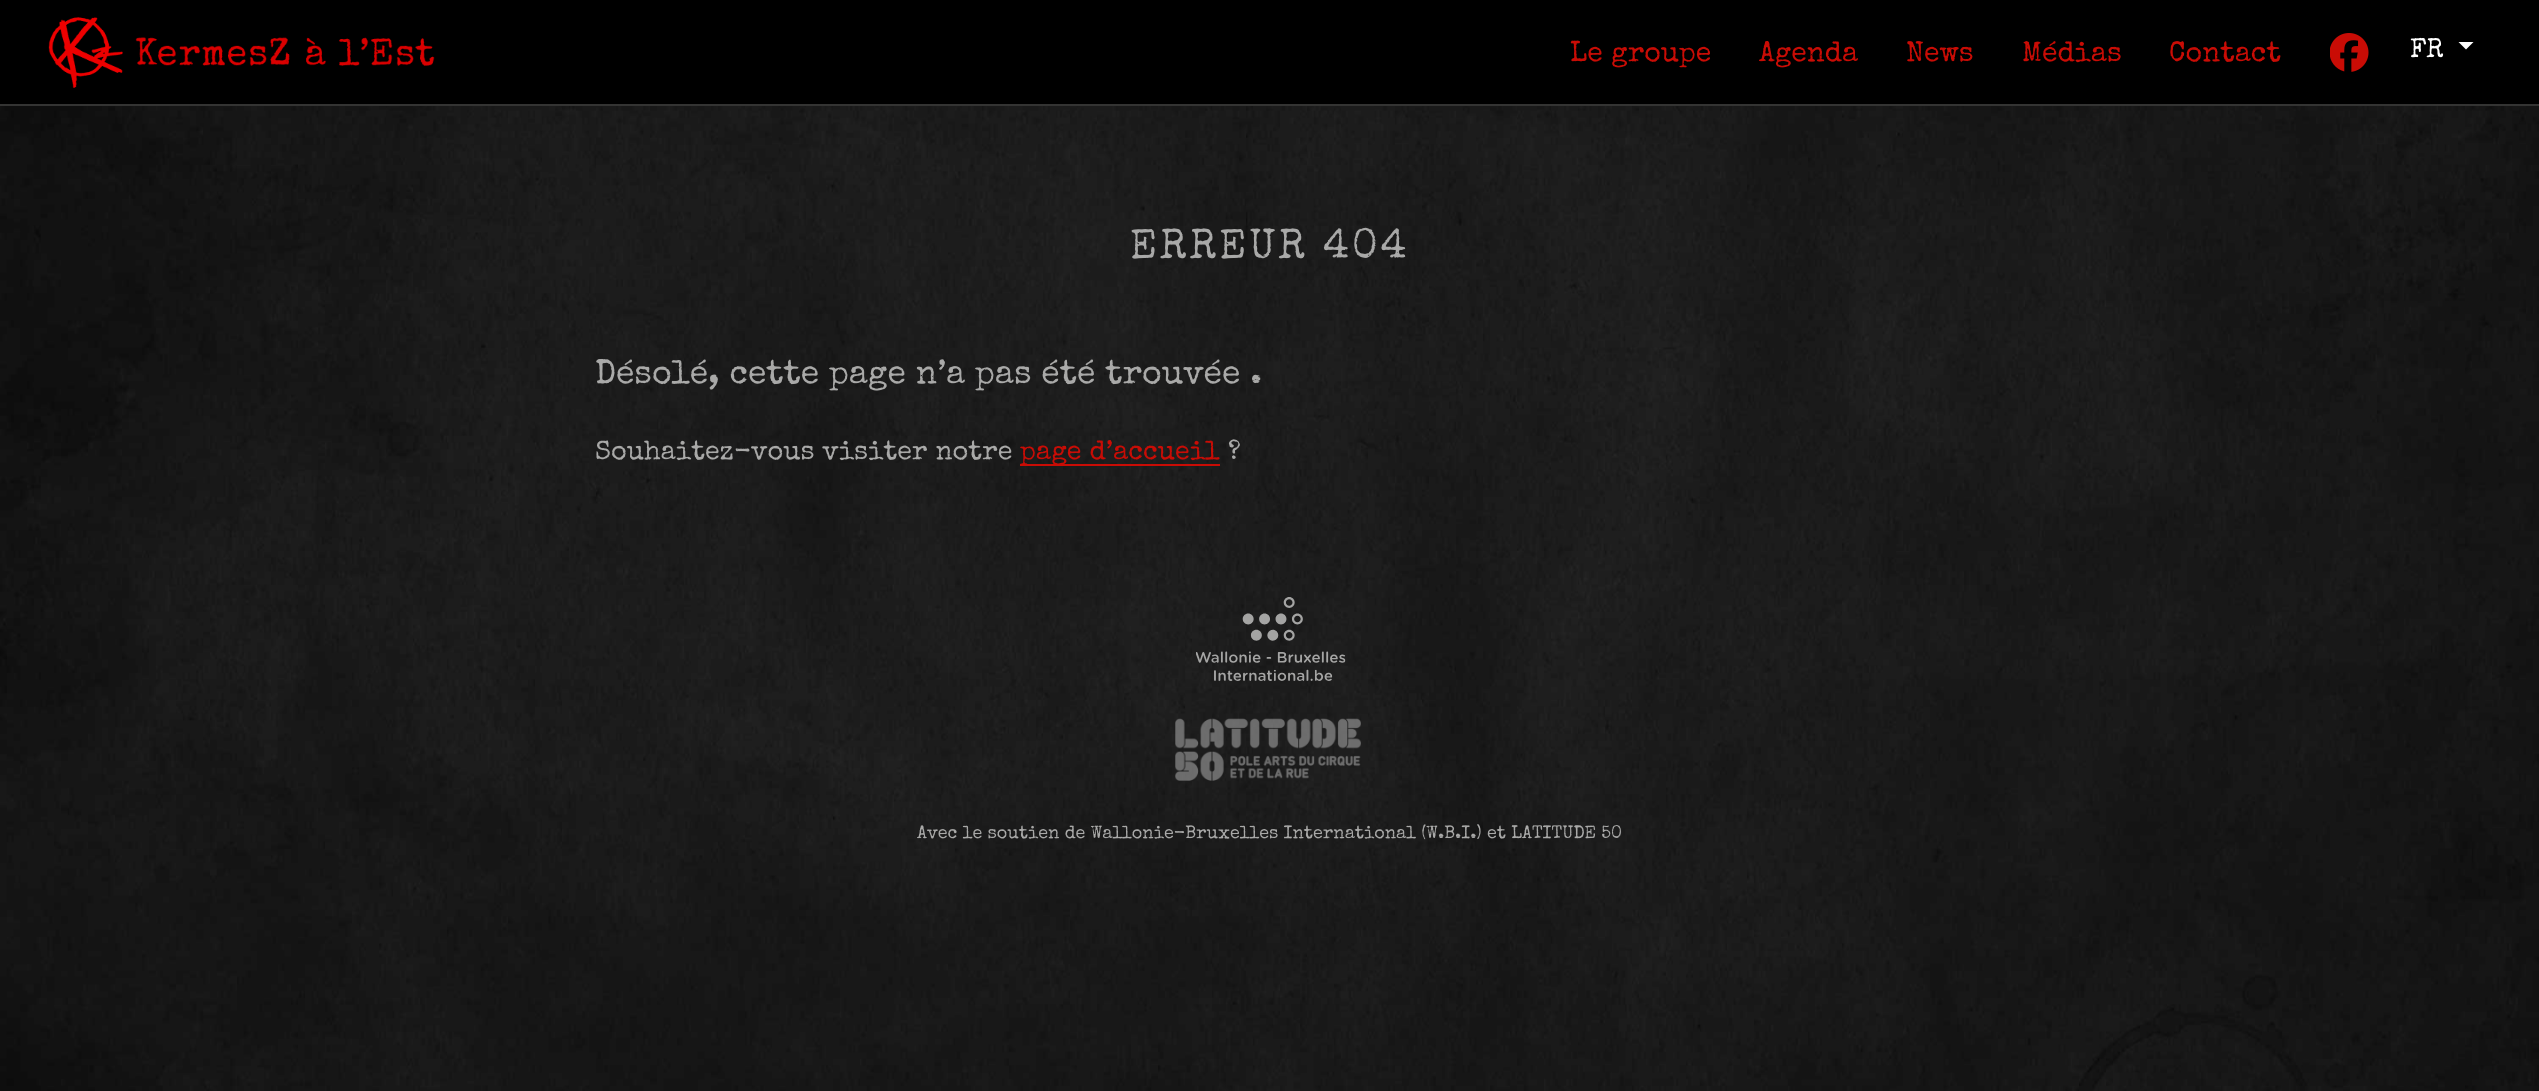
#include <cairo.h>
#include <math.h>
#include <stddef.h>


static void rgb(cairo_t *cr, int r, int g, int b)
{
	cairo_set_source_rgb(cr, r / 255.0, g / 255.0, b / 255.0);
}

static void face(cairo_t *cr, const char *family, double size, int italic, int bold)
{
	cairo_select_font_face(cr, family, italic ? CAIRO_FONT_SLANT_ITALIC : CAIRO_FONT_SLANT_NORMAL,
		bold ? CAIRO_FONT_WEIGHT_BOLD : CAIRO_FONT_WEIGHT_NORMAL);
	cairo_set_font_size(cr, size);
}

static void label(cairo_t *cr, double x, double y, const char *s)
{
	cairo_move_to(cr, x, y);
	cairo_show_text(cr, s);
}

static void tracked(cairo_t *cr, double x, double y, const char *s, double letter, double word)
{
	cairo_move_to(cr, x, y);
	while (*s) {
		char ch[5] = {0};
		int n = 0;
		do ch[n++] = *s++; while ((*s & 0xC0) == 0x80);
		cairo_show_text(cr, ch);
		cairo_rel_move_to(cr, letter + word * (*ch == ' '), 0);
	}
}

static void rect(cairo_t *cr, double x, double y, double w, double h)
{
	cairo_rectangle(cr, x, y, w, h);
	cairo_fill(cr);
}

static void image(cairo_t *cr, const char *path, double x, double y, double w, double h)
{
	cairo_surface_t *image = cairo_image_surface_create_from_png(path);
	cairo_save(cr);
	cairo_set_source_surface(cr, image, x, y);
	cairo_rectangle(cr, x, y, w, h);
	cairo_fill(cr);
	cairo_restore(cr);
	cairo_surface_destroy(image);
}

static void draw(cairo_t *cr) {
	rgb(cr, 255, 255, 255);
	cairo_paint(cr);
	image(cr, "image0.png", 0, 106, 2539, 985);
	rgb(cr, 0, 0, 0);
	rect(cr, 0, 0, 2539, 104);
	rgb(cr, 52, 52, 51);
	rect(cr, 0, 104, 2539, 2);
	image(cr, "image1.png", 48, 17, 387, 71);
	face(cr, "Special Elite", 28.5, 0, 0);
	rgb(cr, 201, 12, 5);
	label(cr, 1570, 61, "Le groupe");
	label(cr, 1759, 61, "Agenda");
	label(cr, 1906, 61, "News");
	label(cr, 2022, 61, "Médias");
	label(cr, 2169, 61, "Contact");
	image(cr, "image2.png", 2330, 33, 39, 39);
	face(cr, "Special Elite", 27, 0, 0);
	rgb(cr, 255, 255, 255);
	label(cr, 2410, 57, "FR");
	cairo_new_path(cr);
	cairo_move_to(cr, 2458.5, 42);
	cairo_line_to(cr, 2473.5, 42);
	cairo_line_to(cr, 2466, 49.5);
	cairo_close_path(cr);
	cairo_fill(cr);
	face(cr, "Special Elite", 42, 0, 0);
	rgb(cr, 169, 169, 168);
	tracked(cr, 1130, 258, "ERREUR 404", 3, 0);
	face(cr, "Special Elite", 33.75, 0, 0);
	label(cr, 595, 383, "Désolé, cette page n’a pas été trouvée .");
	face(cr, "Special Elite", 27, 0, 0);
	label(cr, 595, 459, "Souhaitez-vous visiter notre");
	rgb(cr, 201, 12, 5);
	rect(cr, 1020, 464, 200, 2);
	label(cr, 1020, 459, "page d’accueil");
	rgb(cr, 169, 169, 168);
	label(cr, 1228, 459, "?");
	image(cr, "image3.png", 1196, 597, 150, 84);
	image(cr, "image4.png", 1175, 718, 186, 63);
	face(cr, "Special Elite", 18, 0, 0);
	label(cr, 917, 838, "Avec le soutien de Wallonie-Bruxelles International (W.B.I.) et LATITUDE 50");
}

int main(void) {
	cairo_surface_t *surface = cairo_image_surface_create(CAIRO_FORMAT_RGB24, 2539, 1091);
	cairo_t *cr = cairo_create(surface);
	cairo_font_options_t *options = cairo_font_options_create();
	cairo_font_options_set_hint_metrics(options, CAIRO_HINT_METRICS_OFF);
	cairo_font_options_set_hint_style(options, CAIRO_HINT_STYLE_NONE);
	cairo_set_font_options(cr, options);
	cairo_set_miter_limit(cr, 4);
	draw(cr);
	cairo_surface_write_to_png(surface, "render.png");
	cairo_font_options_destroy(options);
	cairo_destroy(cr);
	cairo_surface_destroy(surface);
	return 0;
}
